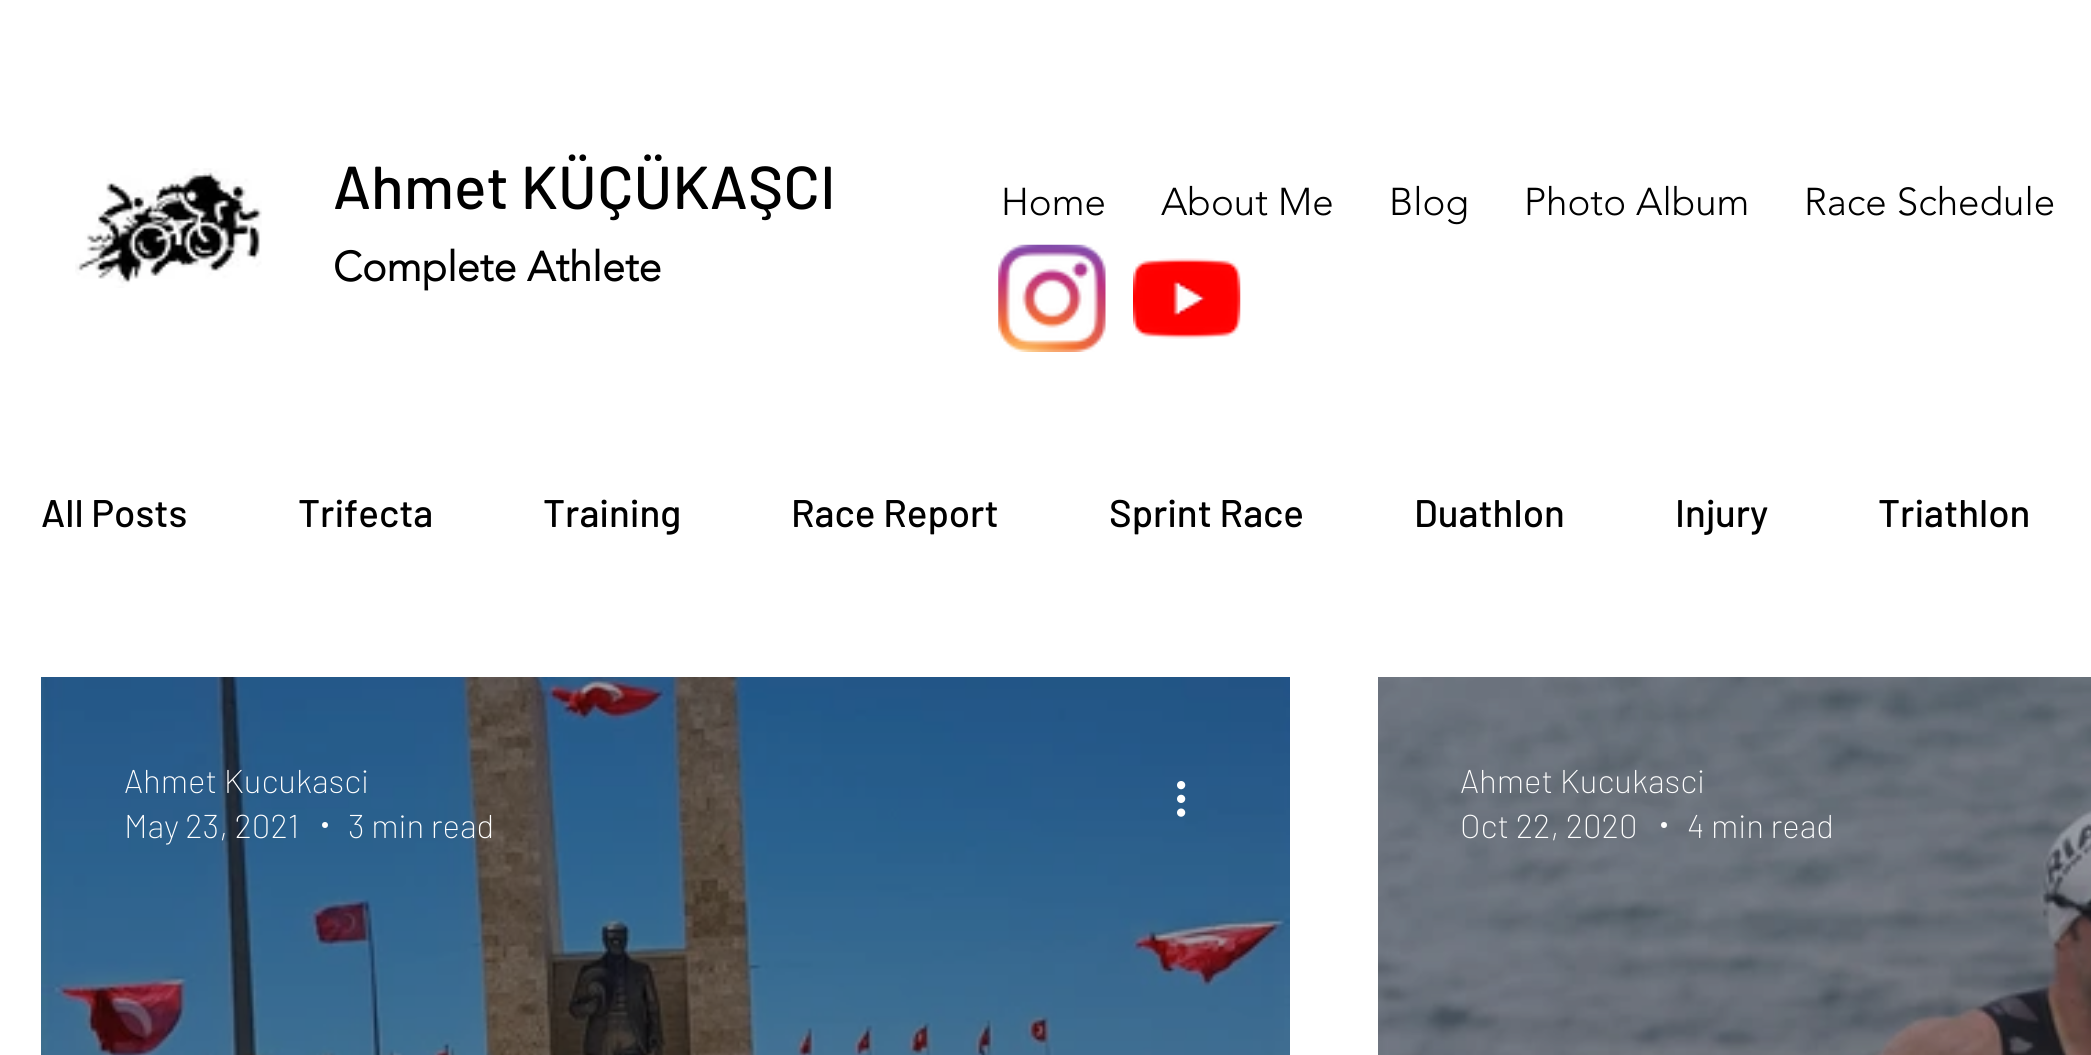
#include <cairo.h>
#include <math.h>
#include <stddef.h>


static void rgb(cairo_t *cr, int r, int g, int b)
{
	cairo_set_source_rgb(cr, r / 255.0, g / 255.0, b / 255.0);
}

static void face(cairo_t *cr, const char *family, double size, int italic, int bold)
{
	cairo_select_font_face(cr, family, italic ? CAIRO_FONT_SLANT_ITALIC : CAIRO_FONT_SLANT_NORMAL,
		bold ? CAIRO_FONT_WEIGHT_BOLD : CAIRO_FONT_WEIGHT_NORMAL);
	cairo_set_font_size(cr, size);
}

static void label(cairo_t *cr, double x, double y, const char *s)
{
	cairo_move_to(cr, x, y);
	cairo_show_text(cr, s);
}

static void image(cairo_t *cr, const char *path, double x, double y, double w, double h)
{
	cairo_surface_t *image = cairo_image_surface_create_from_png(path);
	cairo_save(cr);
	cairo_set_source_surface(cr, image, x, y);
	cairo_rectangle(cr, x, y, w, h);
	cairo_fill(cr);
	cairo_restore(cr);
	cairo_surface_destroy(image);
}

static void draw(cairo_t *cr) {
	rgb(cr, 255, 255, 255);
	cairo_paint(cr);
	image(cr, "image0.png", 75, 168, 187, 120);
	face(cr, "Barlow Medium", 60.5, 0, 0);
	rgb(cr, 0, 0, 0);
	label(cr, 333, 209, "Ahmet KÜÇÜKAŞCI");
	face(cr, "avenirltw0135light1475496", 41.25, 0, 1);
	label(cr, 333, 281, "Complete Athlete");
	face(cr, "avenirltw0135light1475496 Light", 38.5, 0, 0);
	label(cr, 1001, 215, "Home");
	label(cr, 1161, 215, "About Me");
	label(cr, 1389, 215, "Blog");
	label(cr, 1524, 215, "Photo Album");
	label(cr, 1804, 215, "Race Schedule");
	image(cr, "image1.png", 998, 244, 108, 108);
	image(cr, "image2.png", 1133, 258, 108, 81);
	face(cr, "Barlow Medium", 38.5, 0, 0);
	label(cr, 41, 527, "All Posts");
	label(cr, 298, 527, "Trifecta");
	label(cr, 543, 527, "Training");
	label(cr, 791, 527, "Race Report");
	label(cr, 1109, 527, "Sprint Race");
	label(cr, 1414, 527, "Duathlon");
	label(cr, 1675, 527, "Injury");
	label(cr, 1878, 527, "Triathlon");
	image(cr, "image3.png", 41, 677, 1249, 378);
	face(cr, "Barlow ExtraLight", 33, 0, 0);
	rgb(cr, 255, 255, 255);
	label(cr, 124, 793, "Ahmet Kucukasci");
	label(cr, 124, 838, "May 23, 2021");
	cairo_new_path(cr);
	cairo_arc(cr, 325, 825, 3, 0, 2 * M_PI);
	cairo_fill(cr);
	label(cr, 348, 838, "3 min read");
	image(cr, "image4.png", 1177, 781, 9, 36);
	image(cr, "image5.png", 1378, 677, 713, 378);
	label(cr, 1460, 793, "Ahmet Kucukasci");
	label(cr, 1460, 838, "Oct 22, 2020");
	cairo_new_path(cr);
	cairo_arc(cr, 1664, 825, 3, 0, 2 * M_PI);
	cairo_fill(cr);
	label(cr, 1687, 838, "4 min read");
}

int main(void) {
	cairo_surface_t *surface = cairo_image_surface_create(CAIRO_FORMAT_RGB24, 2091, 1055);
	cairo_t *cr = cairo_create(surface);
	cairo_font_options_t *options = cairo_font_options_create();
	cairo_font_options_set_hint_metrics(options, CAIRO_HINT_METRICS_OFF);
	cairo_font_options_set_hint_style(options, CAIRO_HINT_STYLE_NONE);
	cairo_set_font_options(cr, options);
	cairo_set_miter_limit(cr, 4);
	draw(cr);
	cairo_surface_write_to_png(surface, "render.png");
	cairo_font_options_destroy(options);
	cairo_destroy(cr);
	cairo_surface_destroy(surface);
	return 0;
}
